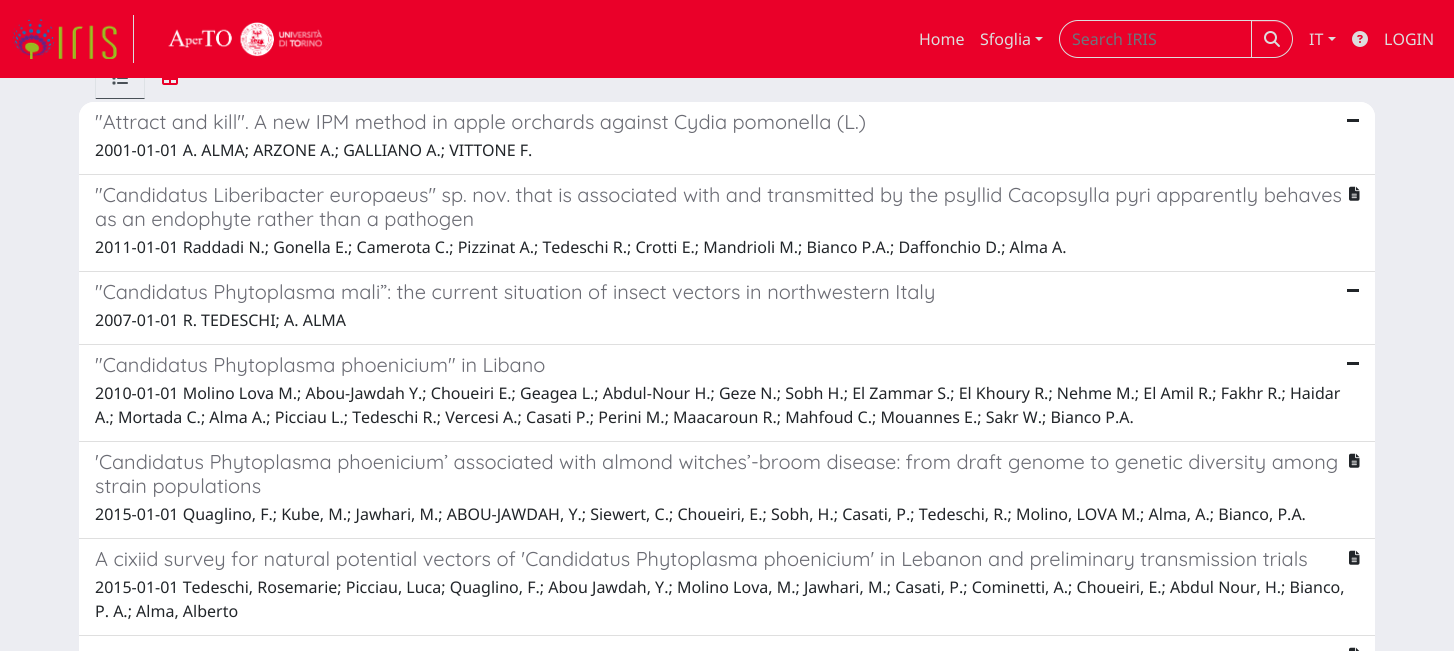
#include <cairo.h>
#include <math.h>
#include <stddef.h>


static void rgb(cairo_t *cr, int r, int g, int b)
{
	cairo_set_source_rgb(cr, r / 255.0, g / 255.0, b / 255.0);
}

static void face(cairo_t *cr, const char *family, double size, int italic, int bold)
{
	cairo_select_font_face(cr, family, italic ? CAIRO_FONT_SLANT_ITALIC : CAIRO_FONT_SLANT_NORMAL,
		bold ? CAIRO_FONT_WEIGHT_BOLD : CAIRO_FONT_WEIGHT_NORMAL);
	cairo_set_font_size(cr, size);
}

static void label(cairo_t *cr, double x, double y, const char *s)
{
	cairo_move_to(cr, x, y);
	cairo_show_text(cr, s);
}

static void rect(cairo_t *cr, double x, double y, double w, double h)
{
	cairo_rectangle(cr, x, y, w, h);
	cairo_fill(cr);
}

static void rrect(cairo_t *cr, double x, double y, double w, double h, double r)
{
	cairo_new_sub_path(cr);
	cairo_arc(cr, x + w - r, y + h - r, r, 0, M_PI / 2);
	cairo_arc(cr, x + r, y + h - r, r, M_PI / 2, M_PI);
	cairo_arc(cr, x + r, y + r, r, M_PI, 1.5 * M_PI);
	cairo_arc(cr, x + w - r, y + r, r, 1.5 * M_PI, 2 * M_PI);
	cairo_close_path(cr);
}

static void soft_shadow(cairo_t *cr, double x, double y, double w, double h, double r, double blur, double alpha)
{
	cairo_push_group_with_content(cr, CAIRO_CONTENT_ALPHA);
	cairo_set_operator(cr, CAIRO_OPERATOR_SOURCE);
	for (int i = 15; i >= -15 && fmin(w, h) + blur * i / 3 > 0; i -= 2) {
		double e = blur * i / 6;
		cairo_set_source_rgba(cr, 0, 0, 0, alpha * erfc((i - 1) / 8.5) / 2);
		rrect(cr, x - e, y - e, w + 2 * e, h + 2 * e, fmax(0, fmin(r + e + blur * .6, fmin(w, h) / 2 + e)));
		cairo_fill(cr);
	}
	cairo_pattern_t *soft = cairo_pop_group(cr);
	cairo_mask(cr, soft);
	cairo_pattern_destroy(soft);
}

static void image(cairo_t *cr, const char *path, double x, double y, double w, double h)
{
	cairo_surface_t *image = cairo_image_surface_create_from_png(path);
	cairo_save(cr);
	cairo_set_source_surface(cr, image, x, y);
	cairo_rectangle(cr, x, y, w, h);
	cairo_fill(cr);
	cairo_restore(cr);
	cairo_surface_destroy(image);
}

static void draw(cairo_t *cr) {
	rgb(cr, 236, 237, 242);
	cairo_paint(cr);
	rgb(cr, 222, 226, 230);
	cairo_new_path(cr);
	cairo_move_to(cr, 145, 99);
	cairo_line_to(cr, 145, 63);
	cairo_curve_to(cr, 145, 62, 144, 60, 143, 59);
	cairo_curve_to(cr, 144, 60, 144, 62, 144, 63);
	cairo_line_to(cr, 144, 98);
	cairo_close_path(cr);
	cairo_fill(cr);
	rgb(cr, 73, 80, 87);
	cairo_new_path(cr);
	cairo_move_to(cr, 145, 99);
	cairo_line_to(cr, 144, 98);
	cairo_line_to(cr, 96, 98);
	cairo_line_to(cr, 95, 99);
	cairo_close_path(cr);
	cairo_fill(cr);
	rgb(cr, 222, 226, 230);
	cairo_new_path(cr);
	cairo_move_to(cr, 95, 99);
	cairo_line_to(cr, 96, 98);
	cairo_line_to(cr, 96, 63);
	cairo_curve_to(cr, 96, 62, 96, 60, 97, 59);
	cairo_curve_to(cr, 96, 60, 95, 62, 95, 63);
	cairo_close_path(cr);
	cairo_fill(cr);
	rgb(cr, 234, 0, 41);
	rect(cr, 0, 0, 1454, 78);
	rgb(cr, 221, 221, 221);
	rect(cr, 133, 15, 1, 48);
	image(cr, "image0.png", 12, 19, 105, 40);
	image(cr, "image1.png", 168, 22, 155, 35);
	face(cr, "Noto Sans", 16, 0, 0);
	label(cr, 919, 45, "Home");
	label(cr, 980, 45, "Sfoglia");
	cairo_new_path(cr);
	cairo_move_to(cr, 1035, 37);
	cairo_line_to(cr, 1043, 37);
	cairo_line_to(cr, 1039, 41);
	cairo_close_path(cr);
	cairo_fill(cr);
	cairo_new_path(cr);
	cairo_move_to(cr, 1078, 20.5);
	cairo_line_to(cr, 1251.5, 20.5);
	cairo_line_to(cr, 1251.5, 57.5);
	cairo_line_to(cr, 1078, 57.5);
	cairo_curve_to(cr, 1068, 57.5, 1059.5, 49, 1059.5, 39);
	cairo_curve_to(cr, 1059.5, 29, 1068, 20.5, 1078, 20.5);
	cairo_close_path(cr);
	cairo_set_line_width(cr, 1);
	cairo_stroke(cr);
	rgb(cr, 108, 117, 125);
	label(cr, 1072, 45, "Search IRIS");
	rgb(cr, 0, 0, 0);
	soft_shadow(cr, 1251, 21, 42, 38, 19, 0.5, 0.07);
	rgb(cr, 234, 0, 41);
	cairo_new_path(cr);
	cairo_move_to(cr, 1251, 20);
	cairo_line_to(cr, 1274, 20);
	cairo_curve_to(cr, 1284.5, 20, 1293, 28.5, 1293, 39);
	cairo_curve_to(cr, 1293, 49.5, 1284.5, 58, 1274, 58);
	cairo_line_to(cr, 1251, 58);
	cairo_close_path(cr);
	cairo_fill(cr);
	rgb(cr, 237, 38, 73);
	cairo_new_path(cr);
	cairo_move_to(cr, 1252, 22);
	cairo_line_to(cr, 1274, 22);
	cairo_curve_to(cr, 1284, 22, 1292, 30, 1292, 39);
	cairo_curve_to(cr, 1292, 31, 1286, 23, 1278, 21);
	cairo_line_to(cr, 1252, 21);
	cairo_close_path(cr);
	cairo_fill(cr);
	cairo_new_path(cr);
	cairo_move_to(cr, 1251.5, 20.5);
	cairo_line_to(cr, 1274, 20.5);
	cairo_curve_to(cr, 1284, 20.5, 1292.5, 29, 1292.5, 39);
	cairo_curve_to(cr, 1292.5, 49, 1284, 57.5, 1274, 57.5);
	cairo_line_to(cr, 1251.5, 57.5);
	cairo_close_path(cr);
	rgb(cr, 221, 221, 221);
	cairo_stroke(cr);
	image(cr, "image2.png", 1264, 31, 16, 16);
	label(cr, 1309, 45, "IT");
	cairo_new_path(cr);
	cairo_move_to(cr, 1328, 37);
	cairo_line_to(cr, 1336, 37);
	cairo_line_to(cr, 1332, 41);
	cairo_close_path(cr);
	cairo_fill(cr);
	image(cr, "image3.png", 1352, 31, 16, 16);
	label(cr, 1384, 45, "LOGIN");
	image(cr, "image4.png", 112, 78, 16, 7);
	image(cr, "image5.png", 162, 78, 16, 7);
	rgb(cr, 255, 255, 255);
	rrect(cr, 79, 102, 1296, 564, 15);
	cairo_fill(cr);
	cairo_new_path(cr);
	cairo_move_to(cr, 94, 102);
	cairo_line_to(cr, 1360, 102);
	cairo_curve_to(cr, 1368.5, 102, 1375, 108.5, 1375, 117);
	cairo_line_to(cr, 1375, 175);
	cairo_line_to(cr, 79, 175);
	cairo_line_to(cr, 79, 117);
	cairo_curve_to(cr, 79, 108.5, 85.5, 102, 94, 102);
	cairo_close_path(cr);
	cairo_fill(cr);
	rgb(cr, 223, 223, 223);
	rect(cr, 79, 174, 1296, 1);
	face(cr, "Quicksand", 20, 0, 0);
	rgb(cr, 107, 108, 116);
	label(cr, 95, 129, "\"Attract and kill\". A new IPM method in apple orchards against Cydia pomonella (L.)");
	rgb(cr, 33, 37, 41);
	rect(cr, 1347, 119, 12, 3);
	face(cr, "Noto Sans", 16, 0, 0);
	label(cr, 95, 156, "2001-01-01 A. ALMA; ARZONE A.; GALLIANO A.; VITTONE F.");
	rgb(cr, 223, 223, 223);
	rect(cr, 79, 271, 1296, 1);
	face(cr, "Quicksand", 20, 0, 0);
	rgb(cr, 107, 108, 116);
	label(cr, 95, 202, "\"Candidatus Liberibacter europaeus\" sp. nov. that is associated with and transmitted by the psyllid Cacopsylla pyri apparently behaves");
	label(cr, 95, 226, "as an endophyte rather than a pathogen");
	image(cr, "image6.png", 1349, 186, 11, 15);
	face(cr, "Noto Sans", 16, 0, 0);
	rgb(cr, 33, 37, 41);
	label(cr, 95, 253, "2011-01-01 Raddadi N.; Gonella E.; Camerota C.; Pizzinat A.; Tedeschi R.; Crotti E.; Mandrioli M.; Bianco P.A.; Daffonchio D.; Alma A.");
	rgb(cr, 223, 223, 223);
	rect(cr, 79, 344, 1296, 1);
	face(cr, "Quicksand", 20, 0, 0);
	rgb(cr, 107, 108, 116);
	label(cr, 95, 299, "\"Candidatus Phytoplasma mali”: the current situation of insect vectors in northwestern Italy");
	rgb(cr, 33, 37, 41);
	rect(cr, 1347, 289, 12, 3);
	face(cr, "Noto Sans", 16, 0, 0);
	label(cr, 95, 326, "2007-01-01 R. TEDESCHI; A. ALMA");
	rgb(cr, 223, 223, 223);
	rect(cr, 79, 441, 1296, 1);
	face(cr, "Quicksand", 20, 0, 0);
	rgb(cr, 107, 108, 116);
	label(cr, 95, 372, "\"Candidatus Phytoplasma phoenicium\" in Libano");
	rgb(cr, 33, 37, 41);
	rect(cr, 1347, 362, 12, 3);
	face(cr, "Noto Sans", 16, 0, 0);
	label(cr, 95, 399, "2010-01-01 Molino Lova M.; Abou-Jawdah Y.; Choueiri E.; Geagea L.; Abdul-Nour H.; Geze N.; Sobh H.; El Zammar S.; El Khoury R.; Nehme M.; El Amil R.; Fakhr R.; Haidar");
	label(cr, 95, 423, "A.; Mortada C.; Alma A.; Picciau L.; Tedeschi R.; Vercesi A.; Casati P.; Perini M.; Maacaroun R.; Mahfoud C.; Mouannes E.; Sakr W.; Bianco P.A.");
	rgb(cr, 223, 223, 223);
	rect(cr, 79, 538, 1296, 1);
	face(cr, "Quicksand", 20, 0, 0);
	rgb(cr, 107, 108, 116);
	label(cr, 95, 469, "'Candidatus Phytoplasma phoenicium’ associated with almond witches’-broom disease: from draft genome to genetic diversity among");
	label(cr, 95, 493, "strain populations");
	image(cr, "image6.png", 1349, 453, 11, 15);
	face(cr, "Noto Sans", 16, 0, 0);
	rgb(cr, 33, 37, 41);
	label(cr, 95, 520, "2015-01-01 Quaglino, F.; Kube, M.; Jawhari, M.; ABOU-JAWDAH, Y.; Siewert, C.; Choueiri, E.; Sobh, H.; Casati, P.; Tedeschi, R.; Molino, LOVA M.; Alma, A.; Bianco, P.A.");
	rgb(cr, 223, 223, 223);
	rect(cr, 79, 635, 1296, 1);
	face(cr, "Quicksand", 20, 0, 0);
	rgb(cr, 107, 108, 116);
	label(cr, 95, 566, "A cixiid survey for natural potential vectors of 'Candidatus Phytoplasma phoenicium' in Lebanon and preliminary transmission trials");
	image(cr, "image6.png", 1349, 550, 11, 15);
	face(cr, "Noto Sans", 16, 0, 0);
	rgb(cr, 33, 37, 41);
	label(cr, 95, 593, "2015-01-01 Tedeschi, Rosemarie; Picciau, Luca; Quaglino, F.; Abou Jawdah, Y.; Molino Lova, M.; Jawhari, M.; Casati, P.; Cominetti, A.; Choueiri, E.; Abdul Nour, H.; Bianco,");
	label(cr, 95, 617, "P. A.; Alma, Alberto");
	image(cr, "image7.png", 1349, 647, 11, 4);
}

int main(void) {
	cairo_surface_t *surface = cairo_image_surface_create(CAIRO_FORMAT_RGB24, 1454, 651);
	cairo_t *cr = cairo_create(surface);
	cairo_font_options_t *options = cairo_font_options_create();
	cairo_font_options_set_hint_metrics(options, CAIRO_HINT_METRICS_OFF);
	cairo_font_options_set_hint_style(options, CAIRO_HINT_STYLE_NONE);
	cairo_set_font_options(cr, options);
	cairo_set_miter_limit(cr, 4);
	draw(cr);
	cairo_surface_write_to_png(surface, "render.png");
	cairo_font_options_destroy(options);
	cairo_destroy(cr);
	cairo_surface_destroy(surface);
	return 0;
}
